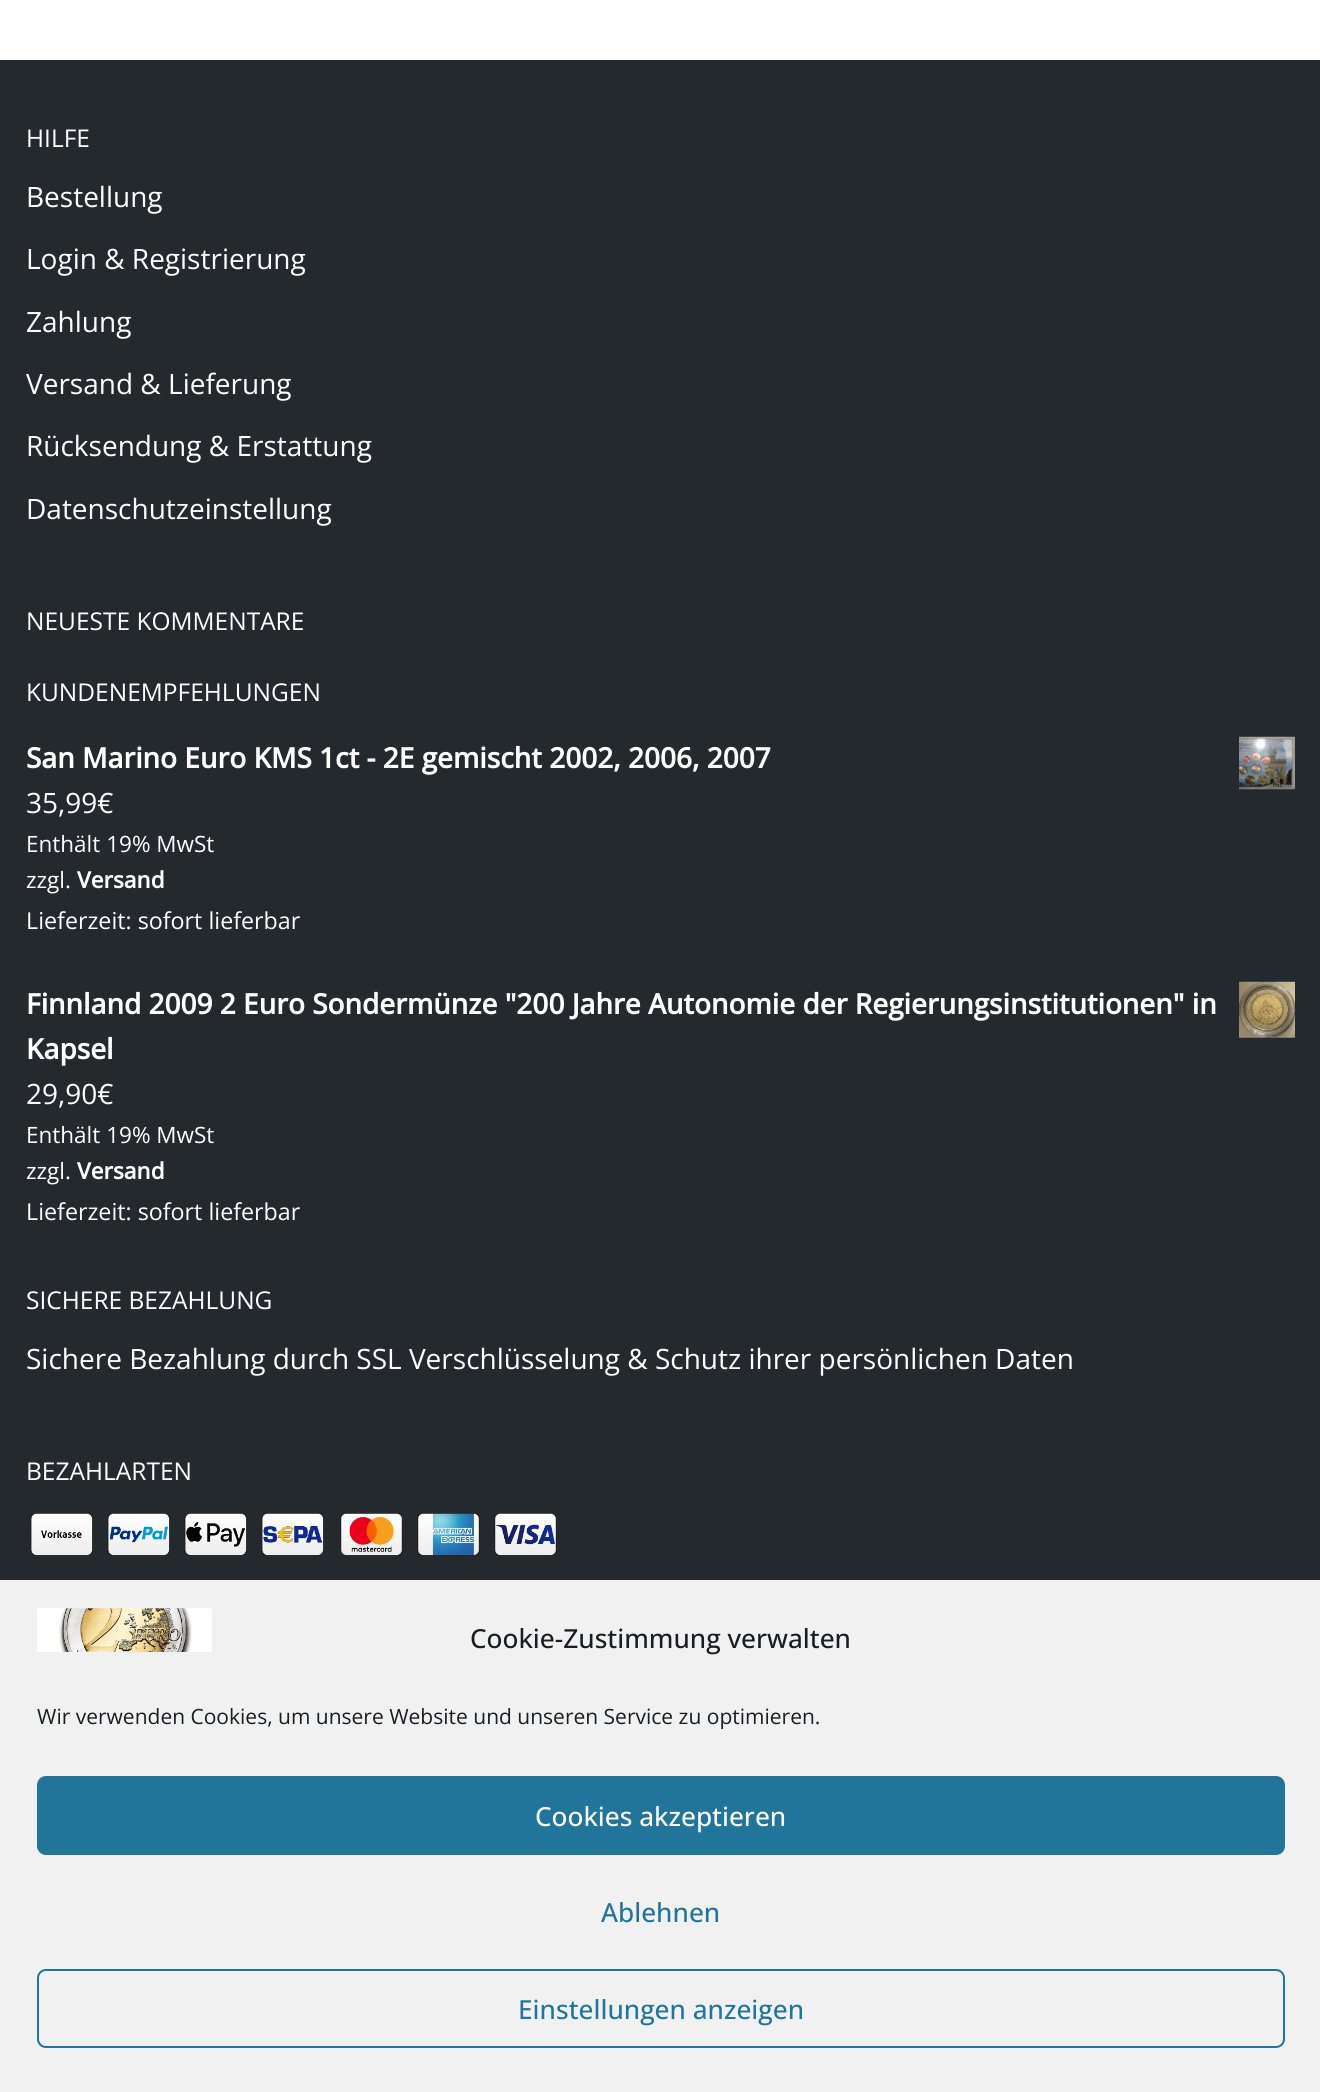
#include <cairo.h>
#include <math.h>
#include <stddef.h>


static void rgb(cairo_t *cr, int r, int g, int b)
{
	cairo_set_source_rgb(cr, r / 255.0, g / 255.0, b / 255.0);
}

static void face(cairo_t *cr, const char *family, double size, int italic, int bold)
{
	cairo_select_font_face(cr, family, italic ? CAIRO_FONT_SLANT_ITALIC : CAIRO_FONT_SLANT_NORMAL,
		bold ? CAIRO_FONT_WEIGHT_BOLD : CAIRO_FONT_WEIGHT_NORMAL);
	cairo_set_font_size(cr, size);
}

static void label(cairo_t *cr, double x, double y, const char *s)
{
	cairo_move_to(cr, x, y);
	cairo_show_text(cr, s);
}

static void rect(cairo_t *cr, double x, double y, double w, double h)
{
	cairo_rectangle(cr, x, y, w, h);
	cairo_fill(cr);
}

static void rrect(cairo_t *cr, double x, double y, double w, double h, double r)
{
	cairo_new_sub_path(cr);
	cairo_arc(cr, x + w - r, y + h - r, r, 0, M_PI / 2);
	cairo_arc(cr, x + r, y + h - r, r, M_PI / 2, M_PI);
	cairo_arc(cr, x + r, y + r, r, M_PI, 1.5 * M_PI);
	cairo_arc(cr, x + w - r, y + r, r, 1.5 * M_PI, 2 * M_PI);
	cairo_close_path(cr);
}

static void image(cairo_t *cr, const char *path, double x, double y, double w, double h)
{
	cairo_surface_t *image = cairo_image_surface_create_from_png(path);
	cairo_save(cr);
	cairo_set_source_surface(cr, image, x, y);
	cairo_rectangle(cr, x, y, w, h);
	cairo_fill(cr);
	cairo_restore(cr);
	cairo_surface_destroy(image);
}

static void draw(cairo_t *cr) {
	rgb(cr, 255, 255, 255);
	cairo_paint(cr);
	rgb(cr, 36, 41, 46);
	rect(cr, 0, 60, 1320, 1520);
	face(cr, "Open Sans", 24.5, 0, 0);
	rgb(cr, 255, 255, 255);
	label(cr, 26, 147, "HILFE");
	face(cr, "Open Sans", 28, 0, 0);
	label(cr, 26, 207, "Bestellung");
	label(cr, 26, 269, "Login & Registrierung");
	label(cr, 26, 332, "Zahlung");
	label(cr, 26, 394, "Versand & Lieferung");
	label(cr, 26, 456, "Rücksendung & Erstattung");
	label(cr, 26, 519, "Datenschutzeinstellung");
	face(cr, "Open Sans", 24.5, 0, 0);
	label(cr, 26, 630, "NEUESTE KOMMENTARE");
	label(cr, 26, 701, "KUNDENEMPFEHLUNGEN");
	face(cr, "Open Sans", 28, 0, 1);
	label(cr, 26, 768, "San Marino Euro KMS 1ct - 2E gemischt 2002, 2006, 2007");
	image(cr, "image0.png", 1239, 736, 56, 54);
	face(cr, "Open Sans", 28, 0, 0);
	label(cr, 26, 813, "35,99€");
	face(cr, "Open Sans", 22.5, 0, 0);
	label(cr, 26, 852, "Enthält 19% MwSt");
	label(cr, 26, 888, "zzgl.");
	face(cr, "Open Sans", 22.5, 0, 1);
	label(cr, 77, 888, "Versand");
	face(cr, "Open Sans", 23.25, 0, 0);
	label(cr, 26, 929, "Lieferzeit: sofort lieferbar");
	face(cr, "Open Sans", 28, 0, 1);
	label(cr, 26, 1014, "Finnland 2009 2 Euro Sondermünze \"200 Jahre Autonomie der Regierungsinstitutionen\" in");
	image(cr, "image1.png", 1239, 981, 56, 57);
	label(cr, 26, 1059, "Kapsel");
	face(cr, "Open Sans", 28, 0, 0);
	label(cr, 26, 1104, "29,90€");
	face(cr, "Open Sans", 22.5, 0, 0);
	label(cr, 26, 1143, "Enthält 19% MwSt");
	label(cr, 26, 1179, "zzgl.");
	face(cr, "Open Sans", 22.5, 0, 1);
	label(cr, 77, 1179, "Versand");
	face(cr, "Open Sans", 23.25, 0, 0);
	label(cr, 26, 1220, "Lieferzeit: sofort lieferbar");
	face(cr, "Open Sans", 24.5, 0, 0);
	label(cr, 26, 1309, "SICHERE BEZAHLUNG");
	face(cr, "Open Sans", 28, 0, 0);
	label(cr, 26, 1369, "Sichere Bezahlung durch SSL Verschlüsselung & Schutz ihrer persönlichen Daten");
	face(cr, "Open Sans", 24.5, 0, 0);
	label(cr, 26, 1480, "BEZAHLARTEN");
	image(cr, "image2.png", 30, 1513, 63, 43);
	image(cr, "image3.png", 107, 1513, 63, 43);
	image(cr, "image4.png", 184, 1513, 63, 43);
	image(cr, "image5.png", 261, 1513, 63, 43);
	image(cr, "image6.png", 340, 1513, 63, 43);
	image(cr, "image7.png", 417, 1513, 63, 43);
	image(cr, "image8.png", 494, 1513, 63, 43);
	rgb(cr, 241, 241, 241);
	rect(cr, 0, 1580, 1320, 512);
	image(cr, "image9.png", 37, 1608, 175, 44);
	face(cr, "Open Sans Medium", 26.25, 0, 0);
	rgb(cr, 25, 30, 35);
	label(cr, 470, 1648, "Cookie-Zustimmung verwalten");
	face(cr, "Open Sans", 21, 0, 0);
	label(cr, 37, 1724, "Wir verwenden Cookies, um unsere Website und unseren Service zu optimieren.");
	rgb(cr, 33, 117, 155);
	rrect(cr, 38, 1777, 1246, 77, 8);
	cairo_fill_preserve(cr);
	cairo_stroke(cr);
	face(cr, "Open Sans Medium", 26.25, 0, 0);
	rgb(cr, 255, 255, 255);
	label(cr, 535, 1826, "Cookies akzeptieren");
	rgb(cr, 33, 117, 155);
	label(cr, 601, 1922, "Ablehnen");
	rrect(cr, 38, 1970, 1246, 77, 8);
	cairo_stroke(cr);
	label(cr, 518, 2019, "Einstellungen anzeigen");
}

int main(void) {
	cairo_surface_t *surface = cairo_image_surface_create(CAIRO_FORMAT_RGB24, 1320, 2092);
	cairo_t *cr = cairo_create(surface);
	cairo_font_options_t *options = cairo_font_options_create();
	cairo_font_options_set_hint_metrics(options, CAIRO_HINT_METRICS_OFF);
	cairo_font_options_set_hint_style(options, CAIRO_HINT_STYLE_NONE);
	cairo_set_font_options(cr, options);
	cairo_set_miter_limit(cr, 4);
	draw(cr);
	cairo_surface_write_to_png(surface, "render.png");
	cairo_font_options_destroy(options);
	cairo_destroy(cr);
	cairo_surface_destroy(surface);
	return 0;
}
